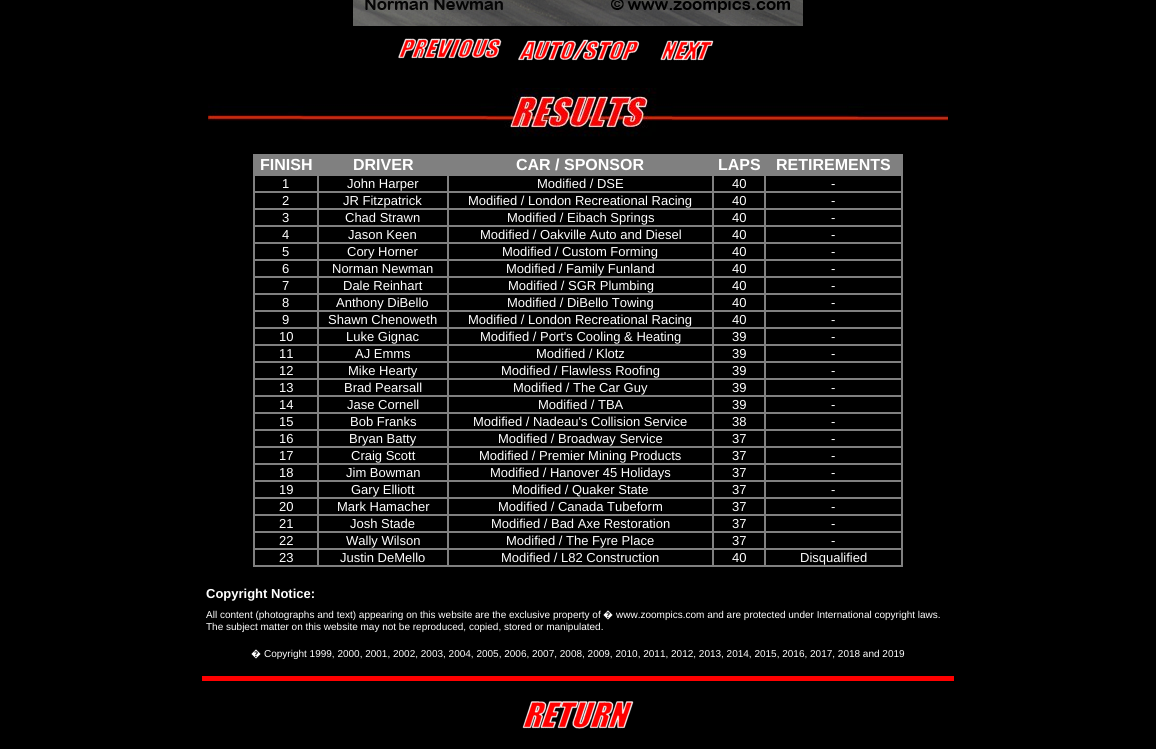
#include <cairo.h>
#include <math.h>
#include <stddef.h>


static void rgb(cairo_t *cr, int r, int g, int b)
{
	cairo_set_source_rgb(cr, r / 255.0, g / 255.0, b / 255.0);
}

static void face(cairo_t *cr, const char *family, double size, int italic, int bold)
{
	cairo_select_font_face(cr, family, italic ? CAIRO_FONT_SLANT_ITALIC : CAIRO_FONT_SLANT_NORMAL,
		bold ? CAIRO_FONT_WEIGHT_BOLD : CAIRO_FONT_WEIGHT_NORMAL);
	cairo_set_font_size(cr, size);
}

static void label(cairo_t *cr, double x, double y, const char *s)
{
	cairo_move_to(cr, x, y);
	cairo_show_text(cr, s);
}

static void rect(cairo_t *cr, double x, double y, double w, double h)
{
	cairo_rectangle(cr, x, y, w, h);
	cairo_fill(cr);
}

static void image(cairo_t *cr, const char *path, double x, double y, double w, double h)
{
	cairo_surface_t *image = cairo_image_surface_create_from_png(path);
	cairo_save(cr);
	cairo_set_source_surface(cr, image, x, y);
	cairo_rectangle(cr, x, y, w, h);
	cairo_fill(cr);
	cairo_restore(cr);
	cairo_surface_destroy(image);
}

static void draw(cairo_t *cr) {
	rgb(cr, 0, 0, 0);
	cairo_paint(cr);
	image(cr, "image0.png", 353, 0, 450, 26);
	image(cr, "image1.png", 398, 38, 104, 21);
	image(cr, "image2.png", 518, 39, 122, 22);
	image(cr, "image3.png", 660, 40, 54, 21);
	image(cr, "image4.png", 208, 88, 740, 49);
	rgb(cr, 128, 128, 128);
	rect(cr, 253, 154, 650, 413);
	face(cr, "Liberation Sans", 16, 0, 1);
	rgb(cr, 255, 255, 255);
	label(cr, 260, 170, "FINISH");
	label(cr, 353, 170, "DRIVER");
	label(cr, 516, 170, "CAR / SPONSOR");
	label(cr, 718, 170, "LAPS");
	label(cr, 776, 170, "RETIREMENTS");
	rgb(cr, 0, 0, 0);
	rect(cr, 255, 176, 62, 15);
	face(cr, "Liberation Sans", 13, 0, 0);
	rgb(cr, 255, 255, 255);
	label(cr, 282, 188, "1");
	rgb(cr, 0, 0, 0);
	rect(cr, 319, 176, 128, 15);
	rgb(cr, 255, 255, 255);
	label(cr, 347, 188, "John Harper");
	rgb(cr, 0, 0, 0);
	rect(cr, 449, 176, 263, 15);
	rgb(cr, 255, 255, 255);
	label(cr, 537, 188, "Modified / DSE");
	rgb(cr, 0, 0, 0);
	rect(cr, 714, 176, 50, 15);
	rgb(cr, 255, 255, 255);
	label(cr, 732, 188, "40");
	rgb(cr, 0, 0, 0);
	rect(cr, 766, 176, 135, 15);
	rgb(cr, 255, 255, 255);
	label(cr, 831, 188, "-");
	rgb(cr, 0, 0, 0);
	rect(cr, 255, 193, 62, 15);
	rgb(cr, 255, 255, 255);
	label(cr, 282, 205, "2");
	rgb(cr, 0, 0, 0);
	rect(cr, 319, 193, 128, 15);
	rgb(cr, 255, 255, 255);
	label(cr, 343, 205, "JR Fitzpatrick");
	rgb(cr, 0, 0, 0);
	rect(cr, 449, 193, 263, 15);
	rgb(cr, 255, 255, 255);
	label(cr, 468, 205, "Modified / London Recreational Racing");
	rgb(cr, 0, 0, 0);
	rect(cr, 714, 193, 50, 15);
	rgb(cr, 255, 255, 255);
	label(cr, 732, 205, "40");
	rgb(cr, 0, 0, 0);
	rect(cr, 766, 193, 135, 15);
	rgb(cr, 255, 255, 255);
	label(cr, 831, 205, "-");
	rgb(cr, 0, 0, 0);
	rect(cr, 255, 210, 62, 15);
	rgb(cr, 255, 255, 255);
	label(cr, 282, 222, "3");
	rgb(cr, 0, 0, 0);
	rect(cr, 319, 210, 128, 15);
	rgb(cr, 255, 255, 255);
	label(cr, 345, 222, "Chad Strawn");
	rgb(cr, 0, 0, 0);
	rect(cr, 449, 210, 263, 15);
	rgb(cr, 255, 255, 255);
	label(cr, 507, 222, "Modified / Eibach Springs");
	rgb(cr, 0, 0, 0);
	rect(cr, 714, 210, 50, 15);
	rgb(cr, 255, 255, 255);
	label(cr, 732, 222, "40");
	rgb(cr, 0, 0, 0);
	rect(cr, 766, 210, 135, 15);
	rgb(cr, 255, 255, 255);
	label(cr, 831, 222, "-");
	rgb(cr, 0, 0, 0);
	rect(cr, 255, 227, 62, 15);
	rgb(cr, 255, 255, 255);
	label(cr, 282, 239, "4");
	rgb(cr, 0, 0, 0);
	rect(cr, 319, 227, 128, 15);
	rgb(cr, 255, 255, 255);
	label(cr, 348, 239, "Jason Keen");
	rgb(cr, 0, 0, 0);
	rect(cr, 449, 227, 263, 15);
	rgb(cr, 255, 255, 255);
	label(cr, 480, 239, "Modified / Oakville Auto and Diesel");
	rgb(cr, 0, 0, 0);
	rect(cr, 714, 227, 50, 15);
	rgb(cr, 255, 255, 255);
	label(cr, 732, 239, "40");
	rgb(cr, 0, 0, 0);
	rect(cr, 766, 227, 135, 15);
	rgb(cr, 255, 255, 255);
	label(cr, 831, 239, "-");
	rgb(cr, 0, 0, 0);
	rect(cr, 255, 244, 62, 15);
	rgb(cr, 255, 255, 255);
	label(cr, 282, 256, "5");
	rgb(cr, 0, 0, 0);
	rect(cr, 319, 244, 128, 15);
	rgb(cr, 255, 255, 255);
	label(cr, 347, 256, "Cory Horner");
	rgb(cr, 0, 0, 0);
	rect(cr, 449, 244, 263, 15);
	rgb(cr, 255, 255, 255);
	label(cr, 502, 256, "Modified / Custom Forming");
	rgb(cr, 0, 0, 0);
	rect(cr, 714, 244, 50, 15);
	rgb(cr, 255, 255, 255);
	label(cr, 732, 256, "40");
	rgb(cr, 0, 0, 0);
	rect(cr, 766, 244, 135, 15);
	rgb(cr, 255, 255, 255);
	label(cr, 831, 256, "-");
	rgb(cr, 0, 0, 0);
	rect(cr, 255, 261, 62, 15);
	rgb(cr, 255, 255, 255);
	label(cr, 282, 273, "6");
	rgb(cr, 0, 0, 0);
	rect(cr, 319, 261, 128, 15);
	rgb(cr, 255, 255, 255);
	label(cr, 332, 273, "Norman Newman");
	rgb(cr, 0, 0, 0);
	rect(cr, 449, 261, 263, 15);
	rgb(cr, 255, 255, 255);
	label(cr, 506, 273, "Modified / Family Funland");
	rgb(cr, 0, 0, 0);
	rect(cr, 714, 261, 50, 15);
	rgb(cr, 255, 255, 255);
	label(cr, 732, 273, "40");
	rgb(cr, 0, 0, 0);
	rect(cr, 766, 261, 135, 15);
	rgb(cr, 255, 255, 255);
	label(cr, 831, 273, "-");
	rgb(cr, 0, 0, 0);
	rect(cr, 255, 278, 62, 15);
	rgb(cr, 255, 255, 255);
	label(cr, 282, 290, "7");
	rgb(cr, 0, 0, 0);
	rect(cr, 319, 278, 128, 15);
	rgb(cr, 255, 255, 255);
	label(cr, 343, 290, "Dale Reinhart");
	rgb(cr, 0, 0, 0);
	rect(cr, 449, 278, 263, 15);
	rgb(cr, 255, 255, 255);
	label(cr, 508, 290, "Modified / SGR Plumbing");
	rgb(cr, 0, 0, 0);
	rect(cr, 714, 278, 50, 15);
	rgb(cr, 255, 255, 255);
	label(cr, 732, 290, "40");
	rgb(cr, 0, 0, 0);
	rect(cr, 766, 278, 135, 15);
	rgb(cr, 255, 255, 255);
	label(cr, 831, 290, "-");
	rgb(cr, 0, 0, 0);
	rect(cr, 255, 295, 62, 15);
	rgb(cr, 255, 255, 255);
	label(cr, 282, 307, "8");
	rgb(cr, 0, 0, 0);
	rect(cr, 319, 295, 128, 15);
	rgb(cr, 255, 255, 255);
	label(cr, 336, 307, "Anthony DiBello");
	rgb(cr, 0, 0, 0);
	rect(cr, 449, 295, 263, 15);
	rgb(cr, 255, 255, 255);
	label(cr, 507, 307, "Modified / DiBello Towing");
	rgb(cr, 0, 0, 0);
	rect(cr, 714, 295, 50, 15);
	rgb(cr, 255, 255, 255);
	label(cr, 732, 307, "40");
	rgb(cr, 0, 0, 0);
	rect(cr, 766, 295, 135, 15);
	rgb(cr, 255, 255, 255);
	label(cr, 831, 307, "-");
	rgb(cr, 0, 0, 0);
	rect(cr, 255, 312, 62, 15);
	rgb(cr, 255, 255, 255);
	label(cr, 282, 324, "9");
	rgb(cr, 0, 0, 0);
	rect(cr, 319, 312, 128, 15);
	rgb(cr, 255, 255, 255);
	label(cr, 328, 324, "Shawn Chenoweth");
	rgb(cr, 0, 0, 0);
	rect(cr, 449, 312, 263, 15);
	rgb(cr, 255, 255, 255);
	label(cr, 468, 324, "Modified / London Recreational Racing");
	rgb(cr, 0, 0, 0);
	rect(cr, 714, 312, 50, 15);
	rgb(cr, 255, 255, 255);
	label(cr, 732, 324, "40");
	rgb(cr, 0, 0, 0);
	rect(cr, 766, 312, 135, 15);
	rgb(cr, 255, 255, 255);
	label(cr, 831, 324, "-");
	rgb(cr, 0, 0, 0);
	rect(cr, 255, 329, 62, 15);
	rgb(cr, 255, 255, 255);
	label(cr, 279, 341, "10");
	rgb(cr, 0, 0, 0);
	rect(cr, 319, 329, 128, 15);
	rgb(cr, 255, 255, 255);
	label(cr, 346, 341, "Luke Gignac");
	rgb(cr, 0, 0, 0);
	rect(cr, 449, 329, 263, 15);
	rgb(cr, 255, 255, 255);
	label(cr, 480, 341, "Modified / Port's Cooling & Heating");
	rgb(cr, 0, 0, 0);
	rect(cr, 714, 329, 50, 15);
	rgb(cr, 255, 255, 255);
	label(cr, 732, 341, "39");
	rgb(cr, 0, 0, 0);
	rect(cr, 766, 329, 135, 15);
	rgb(cr, 255, 255, 255);
	label(cr, 831, 341, "-");
	rgb(cr, 0, 0, 0);
	rect(cr, 255, 346, 62, 15);
	rgb(cr, 255, 255, 255);
	label(cr, 279, 358, "11");
	rgb(cr, 0, 0, 0);
	rect(cr, 319, 346, 128, 15);
	rgb(cr, 255, 255, 255);
	label(cr, 355, 358, "AJ Emms");
	rgb(cr, 0, 0, 0);
	rect(cr, 449, 346, 263, 15);
	rgb(cr, 255, 255, 255);
	label(cr, 536, 358, "Modified / Klotz");
	rgb(cr, 0, 0, 0);
	rect(cr, 714, 346, 50, 15);
	rgb(cr, 255, 255, 255);
	label(cr, 732, 358, "39");
	rgb(cr, 0, 0, 0);
	rect(cr, 766, 346, 135, 15);
	rgb(cr, 255, 255, 255);
	label(cr, 831, 358, "-");
	rgb(cr, 0, 0, 0);
	rect(cr, 255, 363, 62, 15);
	rgb(cr, 255, 255, 255);
	label(cr, 279, 375, "12");
	rgb(cr, 0, 0, 0);
	rect(cr, 319, 363, 128, 15);
	rgb(cr, 255, 255, 255);
	label(cr, 348, 375, "Mike Hearty");
	rgb(cr, 0, 0, 0);
	rect(cr, 449, 363, 263, 15);
	rgb(cr, 255, 255, 255);
	label(cr, 501, 375, "Modified / Flawless Roofing");
	rgb(cr, 0, 0, 0);
	rect(cr, 714, 363, 50, 15);
	rgb(cr, 255, 255, 255);
	label(cr, 732, 375, "39");
	rgb(cr, 0, 0, 0);
	rect(cr, 766, 363, 135, 15);
	rgb(cr, 255, 255, 255);
	label(cr, 831, 375, "-");
	rgb(cr, 0, 0, 0);
	rect(cr, 255, 380, 62, 15);
	rgb(cr, 255, 255, 255);
	label(cr, 279, 392, "13");
	rgb(cr, 0, 0, 0);
	rect(cr, 319, 380, 128, 15);
	rgb(cr, 255, 255, 255);
	label(cr, 344, 392, "Brad Pearsall");
	rgb(cr, 0, 0, 0);
	rect(cr, 449, 380, 263, 15);
	rgb(cr, 255, 255, 255);
	label(cr, 513, 392, "Modified / The Car Guy");
	rgb(cr, 0, 0, 0);
	rect(cr, 714, 380, 50, 15);
	rgb(cr, 255, 255, 255);
	label(cr, 732, 392, "39");
	rgb(cr, 0, 0, 0);
	rect(cr, 766, 380, 135, 15);
	rgb(cr, 255, 255, 255);
	label(cr, 831, 392, "-");
	rgb(cr, 0, 0, 0);
	rect(cr, 255, 397, 62, 15);
	rgb(cr, 255, 255, 255);
	label(cr, 279, 409, "14");
	rgb(cr, 0, 0, 0);
	rect(cr, 319, 397, 128, 15);
	rgb(cr, 255, 255, 255);
	label(cr, 347, 409, "Jase Cornell");
	rgb(cr, 0, 0, 0);
	rect(cr, 449, 397, 263, 15);
	rgb(cr, 255, 255, 255);
	label(cr, 538, 409, "Modified / TBA");
	rgb(cr, 0, 0, 0);
	rect(cr, 714, 397, 50, 15);
	rgb(cr, 255, 255, 255);
	label(cr, 732, 409, "39");
	rgb(cr, 0, 0, 0);
	rect(cr, 766, 397, 135, 15);
	rgb(cr, 255, 255, 255);
	label(cr, 831, 409, "-");
	rgb(cr, 0, 0, 0);
	rect(cr, 255, 414, 62, 15);
	rgb(cr, 255, 255, 255);
	label(cr, 279, 426, "15");
	rgb(cr, 0, 0, 0);
	rect(cr, 319, 414, 128, 15);
	rgb(cr, 255, 255, 255);
	label(cr, 350, 426, "Bob Franks");
	rgb(cr, 0, 0, 0);
	rect(cr, 449, 414, 263, 15);
	rgb(cr, 255, 255, 255);
	label(cr, 473, 426, "Modified / Nadeau's Collision Service");
	rgb(cr, 0, 0, 0);
	rect(cr, 714, 414, 50, 15);
	rgb(cr, 255, 255, 255);
	label(cr, 732, 426, "38");
	rgb(cr, 0, 0, 0);
	rect(cr, 766, 414, 135, 15);
	rgb(cr, 255, 255, 255);
	label(cr, 831, 426, "-");
	rgb(cr, 0, 0, 0);
	rect(cr, 255, 431, 62, 15);
	rgb(cr, 255, 255, 255);
	label(cr, 279, 443, "16");
	rgb(cr, 0, 0, 0);
	rect(cr, 319, 431, 128, 15);
	rgb(cr, 255, 255, 255);
	label(cr, 349, 443, "Bryan Batty");
	rgb(cr, 0, 0, 0);
	rect(cr, 449, 431, 263, 15);
	rgb(cr, 255, 255, 255);
	label(cr, 498, 443, "Modified / Broadway Service");
	rgb(cr, 0, 0, 0);
	rect(cr, 714, 431, 50, 15);
	rgb(cr, 255, 255, 255);
	label(cr, 732, 443, "37");
	rgb(cr, 0, 0, 0);
	rect(cr, 766, 431, 135, 15);
	rgb(cr, 255, 255, 255);
	label(cr, 831, 443, "-");
	rgb(cr, 0, 0, 0);
	rect(cr, 255, 448, 62, 15);
	rgb(cr, 255, 255, 255);
	label(cr, 279, 460, "17");
	rgb(cr, 0, 0, 0);
	rect(cr, 319, 448, 128, 15);
	rgb(cr, 255, 255, 255);
	label(cr, 351, 460, "Craig Scott");
	rgb(cr, 0, 0, 0);
	rect(cr, 449, 448, 263, 15);
	rgb(cr, 255, 255, 255);
	label(cr, 479, 460, "Modified / Premier Mining Products");
	rgb(cr, 0, 0, 0);
	rect(cr, 714, 448, 50, 15);
	rgb(cr, 255, 255, 255);
	label(cr, 732, 460, "37");
	rgb(cr, 0, 0, 0);
	rect(cr, 766, 448, 135, 15);
	rgb(cr, 255, 255, 255);
	label(cr, 831, 460, "-");
	rgb(cr, 0, 0, 0);
	rect(cr, 255, 465, 62, 15);
	rgb(cr, 255, 255, 255);
	label(cr, 279, 477, "18");
	rgb(cr, 0, 0, 0);
	rect(cr, 319, 465, 128, 15);
	rgb(cr, 255, 255, 255);
	label(cr, 346, 477, "Jim Bowman");
	rgb(cr, 0, 0, 0);
	rect(cr, 449, 465, 263, 15);
	rgb(cr, 255, 255, 255);
	label(cr, 490, 477, "Modified / Hanover 45 Holidays");
	rgb(cr, 0, 0, 0);
	rect(cr, 714, 465, 50, 15);
	rgb(cr, 255, 255, 255);
	label(cr, 732, 477, "37");
	rgb(cr, 0, 0, 0);
	rect(cr, 766, 465, 135, 15);
	rgb(cr, 255, 255, 255);
	label(cr, 831, 477, "-");
	rgb(cr, 0, 0, 0);
	rect(cr, 255, 482, 62, 15);
	rgb(cr, 255, 255, 255);
	label(cr, 279, 494, "19");
	rgb(cr, 0, 0, 0);
	rect(cr, 319, 482, 128, 15);
	rgb(cr, 255, 255, 255);
	label(cr, 351, 494, "Gary Elliott");
	rgb(cr, 0, 0, 0);
	rect(cr, 449, 482, 263, 15);
	rgb(cr, 255, 255, 255);
	label(cr, 512, 494, "Modified / Quaker State");
	rgb(cr, 0, 0, 0);
	rect(cr, 714, 482, 50, 15);
	rgb(cr, 255, 255, 255);
	label(cr, 732, 494, "37");
	rgb(cr, 0, 0, 0);
	rect(cr, 766, 482, 135, 15);
	rgb(cr, 255, 255, 255);
	label(cr, 831, 494, "-");
	rgb(cr, 0, 0, 0);
	rect(cr, 255, 499, 62, 15);
	rgb(cr, 255, 255, 255);
	label(cr, 279, 511, "20");
	rgb(cr, 0, 0, 0);
	rect(cr, 319, 499, 128, 15);
	rgb(cr, 255, 255, 255);
	label(cr, 337, 511, "Mark Hamacher");
	rgb(cr, 0, 0, 0);
	rect(cr, 449, 499, 263, 15);
	rgb(cr, 255, 255, 255);
	label(cr, 498, 511, "Modified / Canada Tubeform");
	rgb(cr, 0, 0, 0);
	rect(cr, 714, 499, 50, 15);
	rgb(cr, 255, 255, 255);
	label(cr, 732, 511, "37");
	rgb(cr, 0, 0, 0);
	rect(cr, 766, 499, 135, 15);
	rgb(cr, 255, 255, 255);
	label(cr, 831, 511, "-");
	rgb(cr, 0, 0, 0);
	rect(cr, 255, 516, 62, 15);
	rgb(cr, 255, 255, 255);
	label(cr, 279, 528, "21");
	rgb(cr, 0, 0, 0);
	rect(cr, 319, 516, 128, 15);
	rgb(cr, 255, 255, 255);
	label(cr, 350, 528, "Josh Stade");
	rgb(cr, 0, 0, 0);
	rect(cr, 449, 516, 263, 15);
	rgb(cr, 255, 255, 255);
	label(cr, 491, 528, "Modified / Bad Axe Restoration");
	rgb(cr, 0, 0, 0);
	rect(cr, 714, 516, 50, 15);
	rgb(cr, 255, 255, 255);
	label(cr, 732, 528, "37");
	rgb(cr, 0, 0, 0);
	rect(cr, 766, 516, 135, 15);
	rgb(cr, 255, 255, 255);
	label(cr, 831, 528, "-");
	rgb(cr, 0, 0, 0);
	rect(cr, 255, 533, 62, 15);
	rgb(cr, 255, 255, 255);
	label(cr, 279, 545, "22");
	rgb(cr, 0, 0, 0);
	rect(cr, 319, 533, 128, 15);
	rgb(cr, 255, 255, 255);
	label(cr, 346, 545, "Wally Wilson");
	rgb(cr, 0, 0, 0);
	rect(cr, 449, 533, 263, 15);
	rgb(cr, 255, 255, 255);
	label(cr, 506, 545, "Modified / The Fyre Place");
	rgb(cr, 0, 0, 0);
	rect(cr, 714, 533, 50, 15);
	rgb(cr, 255, 255, 255);
	label(cr, 732, 545, "37");
	rgb(cr, 0, 0, 0);
	rect(cr, 766, 533, 135, 15);
	rgb(cr, 255, 255, 255);
	label(cr, 831, 545, "-");
	rgb(cr, 0, 0, 0);
	rect(cr, 255, 550, 62, 15);
	rgb(cr, 255, 255, 255);
	label(cr, 279, 562, "23");
	rgb(cr, 0, 0, 0);
	rect(cr, 319, 550, 128, 15);
	rgb(cr, 255, 255, 255);
	label(cr, 340, 562, "Justin DeMello");
	rgb(cr, 0, 0, 0);
	rect(cr, 449, 550, 263, 15);
	rgb(cr, 255, 255, 255);
	label(cr, 501, 562, "Modified / L82 Construction");
	rgb(cr, 0, 0, 0);
	rect(cr, 714, 550, 50, 15);
	rgb(cr, 255, 255, 255);
	label(cr, 732, 562, "40");
	rgb(cr, 0, 0, 0);
	rect(cr, 766, 550, 135, 15);
	rgb(cr, 255, 255, 255);
	label(cr, 800, 562, "Disqualified");
	face(cr, "Liberation Sans", 13, 0, 1);
	label(cr, 206, 598, "Copyright Notice:");
	face(cr, "Liberation Sans", 10, 0, 0);
	label(cr, 206, 618, "All content (photographs and text) appearing on this website are the exclusive property of");
	face(cr, "Noto Sans", 10, 0, 0);
	label(cr, 603, 618, "�");
	face(cr, "Liberation Sans", 10, 0, 0);
	label(cr, 616, 618, "www.zoompics.com and are protected under International copyright laws.");
	label(cr, 206, 630, "The subject matter on this website may not be reproduced, copied, stored or manipulated.");
	face(cr, "Noto Sans", 10, 0, 0);
	label(cr, 251, 657, "�");
	face(cr, "Liberation Sans", 10, 0, 0);
	label(cr, 264, 657, "Copyright 1999, 2000, 2001, 2002, 2003, 2004, 2005, 2006, 2007, 2008, 2009, 2010, 2011, 2012, 2013, 2014, 2015, 2016, 2017, 2018 and 2019");
	rgb(cr, 255, 0, 0);
	rect(cr, 202, 676, 752, 5);
	image(cr, "image5.png", 522, 701, 112, 28);
}

int main(void) {
	cairo_surface_t *surface = cairo_image_surface_create(CAIRO_FORMAT_RGB24, 1156, 749);
	cairo_t *cr = cairo_create(surface);
	cairo_font_options_t *options = cairo_font_options_create();
	cairo_font_options_set_hint_metrics(options, CAIRO_HINT_METRICS_OFF);
	cairo_font_options_set_hint_style(options, CAIRO_HINT_STYLE_NONE);
	cairo_set_font_options(cr, options);
	cairo_set_miter_limit(cr, 4);
	draw(cr);
	cairo_surface_write_to_png(surface, "render.png");
	cairo_font_options_destroy(options);
	cairo_destroy(cr);
	cairo_surface_destroy(surface);
	return 0;
}
